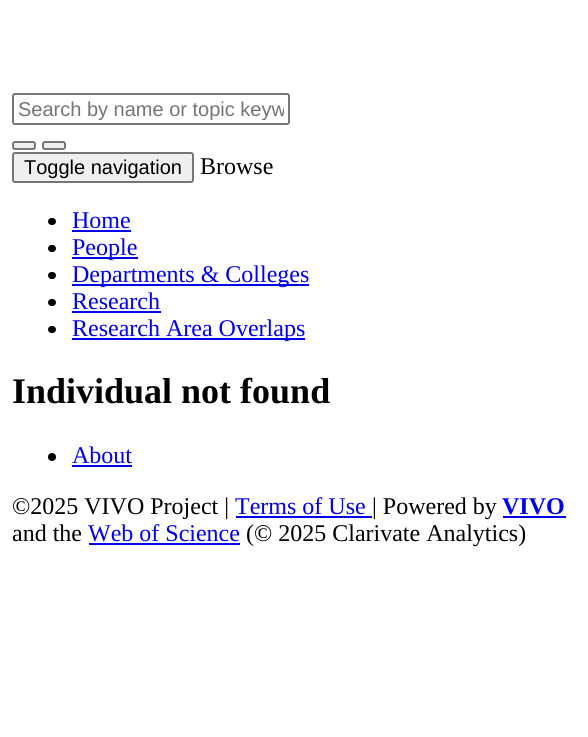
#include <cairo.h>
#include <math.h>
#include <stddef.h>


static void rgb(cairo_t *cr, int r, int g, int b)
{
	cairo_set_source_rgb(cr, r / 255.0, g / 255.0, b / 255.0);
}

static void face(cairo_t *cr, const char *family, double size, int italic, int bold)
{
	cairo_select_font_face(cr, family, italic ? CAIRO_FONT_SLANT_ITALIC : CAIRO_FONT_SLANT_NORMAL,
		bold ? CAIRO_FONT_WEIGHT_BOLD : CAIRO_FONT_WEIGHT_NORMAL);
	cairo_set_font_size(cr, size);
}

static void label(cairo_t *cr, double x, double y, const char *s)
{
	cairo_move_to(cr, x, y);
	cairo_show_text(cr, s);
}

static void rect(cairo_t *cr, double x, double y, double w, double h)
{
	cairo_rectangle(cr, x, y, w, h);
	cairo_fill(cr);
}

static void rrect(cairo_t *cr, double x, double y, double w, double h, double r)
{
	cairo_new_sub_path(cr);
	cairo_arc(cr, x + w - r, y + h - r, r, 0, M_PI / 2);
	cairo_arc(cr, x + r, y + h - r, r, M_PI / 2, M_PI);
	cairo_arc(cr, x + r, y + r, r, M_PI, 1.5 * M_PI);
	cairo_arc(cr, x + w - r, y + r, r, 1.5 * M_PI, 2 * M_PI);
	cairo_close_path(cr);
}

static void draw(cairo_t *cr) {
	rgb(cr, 255, 255, 255);
	cairo_paint(cr);
	rrect(cr, 13, 94, 276, 30, 2);
	rgb(cr, 118, 118, 118);
	cairo_stroke(cr);
	cairo_save(cr);
	cairo_rectangle(cr, 18, 98, 266, 22);
	cairo_clip(cr);
	face(cr, "Liberation Sans", 20, 0, 0);
	rgb(cr, 117, 117, 117);
	label(cr, 18, 116, "Search by name or topic keyw");
	cairo_restore(cr);
	rgb(cr, 239, 239, 239);
	rrect(cr, 13, 142, 22, 7, 2);
	cairo_fill_preserve(cr);
	rgb(cr, 118, 118, 118);
	cairo_stroke(cr);
	rgb(cr, 239, 239, 239);
	rrect(cr, 43, 142, 22, 7, 2);
	cairo_fill_preserve(cr);
	rgb(cr, 118, 118, 118);
	cairo_stroke(cr);
	rgb(cr, 239, 239, 239);
	rrect(cr, 13, 153, 180, 29, 2);
	cairo_fill_preserve(cr);
	rgb(cr, 118, 118, 118);
	cairo_stroke(cr);
	face(cr, "Liberation Sans", 20, 0, 0);
	rgb(cr, 0, 0, 0);
	label(cr, 24, 174, "Toggle navigation");
	face(cr, "Liberation Serif", 24, 0, 0);
	label(cr, 200, 174, "Browse");
	rrect(cr, 48, 218, 8, 7, 3.5);
	cairo_fill(cr);
	rgb(cr, 0, 0, 238);
	label(cr, 72, 228, "Home");
	rect(cr, 72, 230, 59, 2);
	rgb(cr, 0, 0, 0);
	rrect(cr, 48, 245, 8, 7, 3.5);
	cairo_fill(cr);
	rgb(cr, 0, 0, 238);
	rect(cr, 72, 257, 66, 2);
	label(cr, 72, 255, "People");
	rgb(cr, 0, 0, 0);
	rrect(cr, 48, 272, 8, 7, 3.5);
	cairo_fill(cr);
	rgb(cr, 0, 0, 238);
	rect(cr, 72, 284, 237, 2);
	label(cr, 72, 282, "Departments & Colleges");
	rgb(cr, 0, 0, 0);
	rrect(cr, 48, 299, 8, 7, 3.5);
	cairo_fill(cr);
	rgb(cr, 0, 0, 238);
	label(cr, 72, 309, "Research");
	rect(cr, 72, 311, 89, 2);
	rgb(cr, 0, 0, 0);
	rrect(cr, 48, 326, 8, 7, 3.5);
	cairo_fill(cr);
	rgb(cr, 0, 0, 238);
	rect(cr, 72, 338, 233, 2);
	label(cr, 72, 336, "Research Area Overlaps");
	face(cr, "Liberation Serif", 36, 0, 1);
	rgb(cr, 0, 0, 0);
	label(cr, 12, 403, "Individual not found");
	cairo_new_path(cr);
	cairo_arc(cr, 52, 457, 4, 0, 2 * M_PI);
	cairo_fill(cr);
	face(cr, "Liberation Serif", 24, 0, 0);
	rgb(cr, 0, 0, 238);
	label(cr, 72, 463, "About");
	rect(cr, 72, 465, 60, 2);
	rgb(cr, 0, 0, 0);
	label(cr, 12, 514, "©2025 VIVO Project |");
	rgb(cr, 0, 0, 238);
	label(cr, 235, 514, "Terms of Use");
	rect(cr, 236, 516, 136, 2);
	rgb(cr, 0, 0, 0);
	label(cr, 372, 514, "| Powered by");
	face(cr, "Liberation Serif", 24, 0, 1);
	rgb(cr, 0, 0, 238);
	label(cr, 502, 514, "VIVO");
	rect(cr, 503, 516, 63, 2);
	face(cr, "Liberation Serif", 24, 0, 0);
	rgb(cr, 0, 0, 0);
	label(cr, 12, 541, "and the");
	rgb(cr, 0, 0, 238);
	label(cr, 88, 541, "Web of Science");
	rect(cr, 89, 543, 151, 2);
	rgb(cr, 0, 0, 0);
	label(cr, 246, 541, "(© 2025 Clarivate Analytics)");
}

int main(void) {
	cairo_surface_t *surface = cairo_image_surface_create(CAIRO_FORMAT_RGB24, 588, 737);
	cairo_t *cr = cairo_create(surface);
	cairo_font_options_t *options = cairo_font_options_create();
	cairo_font_options_set_hint_metrics(options, CAIRO_HINT_METRICS_OFF);
	cairo_font_options_set_hint_style(options, CAIRO_HINT_STYLE_NONE);
	cairo_set_font_options(cr, options);
	cairo_set_miter_limit(cr, 4);
	draw(cr);
	cairo_surface_write_to_png(surface, "render.png");
	cairo_font_options_destroy(options);
	cairo_destroy(cr);
	cairo_surface_destroy(surface);
	return 0;
}
